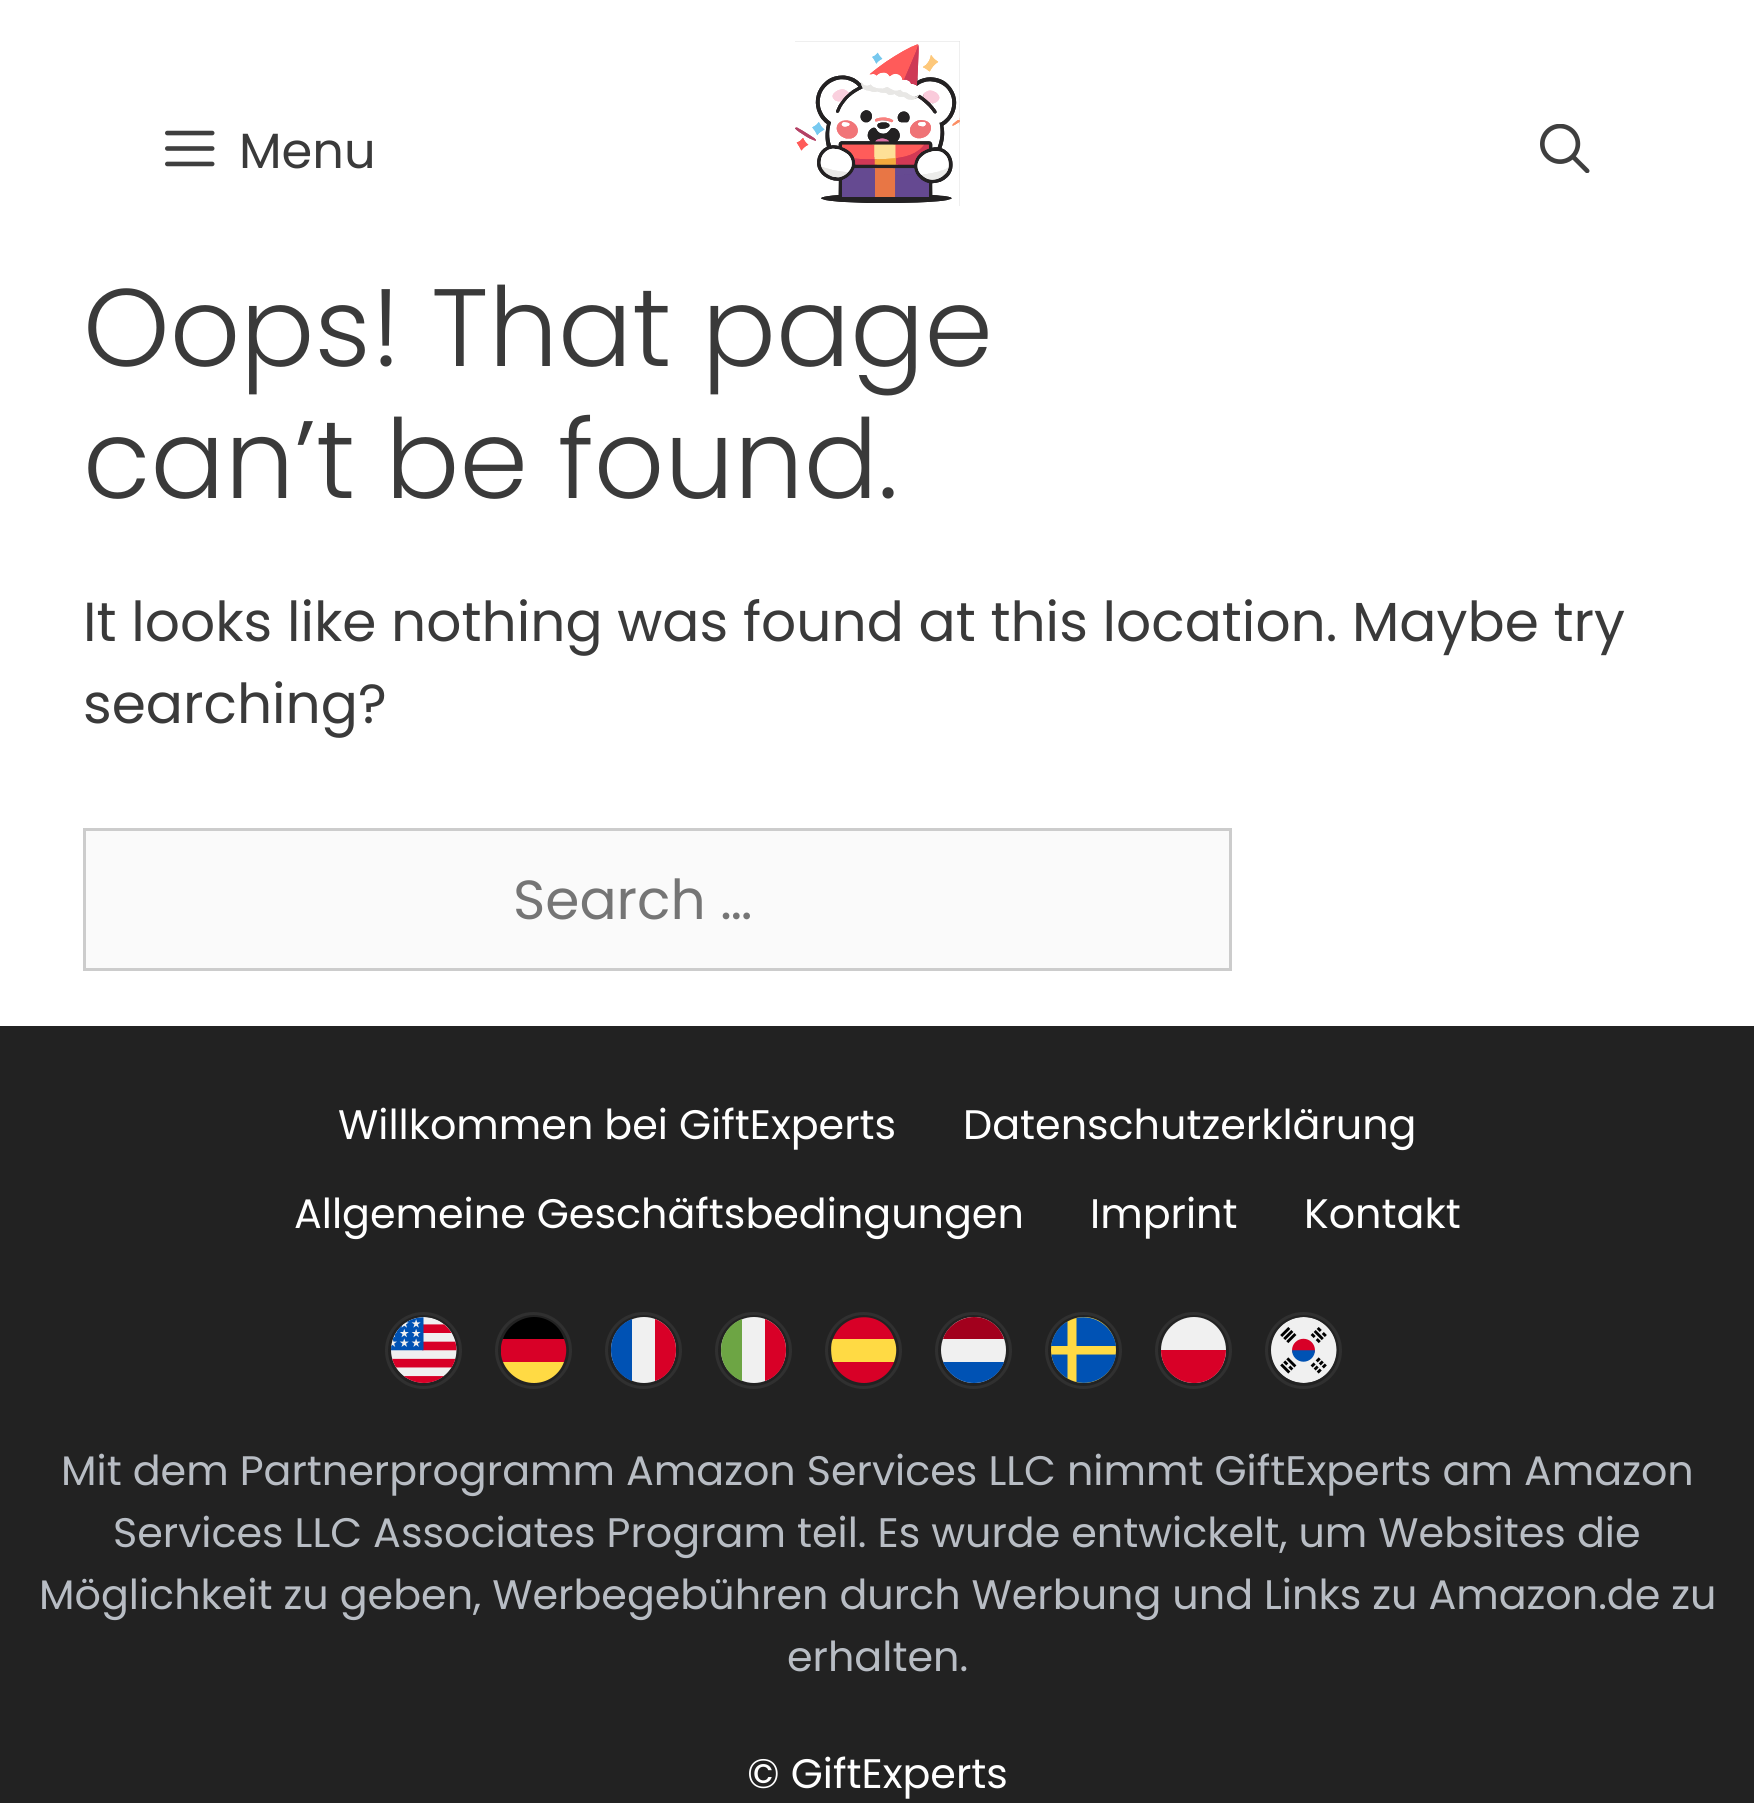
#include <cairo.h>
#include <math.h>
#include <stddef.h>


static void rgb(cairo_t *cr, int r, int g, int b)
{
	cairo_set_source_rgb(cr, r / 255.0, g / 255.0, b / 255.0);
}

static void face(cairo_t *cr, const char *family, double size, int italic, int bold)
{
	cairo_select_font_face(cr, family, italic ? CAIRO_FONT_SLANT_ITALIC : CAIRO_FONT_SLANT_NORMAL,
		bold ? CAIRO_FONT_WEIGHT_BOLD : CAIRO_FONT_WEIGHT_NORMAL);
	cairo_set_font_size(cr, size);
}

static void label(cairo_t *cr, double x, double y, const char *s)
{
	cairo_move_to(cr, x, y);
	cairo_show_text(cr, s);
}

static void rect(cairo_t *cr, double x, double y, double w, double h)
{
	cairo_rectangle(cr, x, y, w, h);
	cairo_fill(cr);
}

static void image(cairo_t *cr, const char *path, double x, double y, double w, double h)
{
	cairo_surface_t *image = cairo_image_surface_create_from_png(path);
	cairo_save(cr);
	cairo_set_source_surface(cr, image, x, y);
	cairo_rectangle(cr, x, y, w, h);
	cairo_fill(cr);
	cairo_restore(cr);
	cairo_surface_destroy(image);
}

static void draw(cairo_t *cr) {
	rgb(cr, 255, 255, 255);
	cairo_paint(cr);
	image(cr, "image0.png", 165, 130, 50, 37);
	face(cr, "Poppins", 49.5, 0, 0);
	rgb(cr, 58, 58, 58);
	label(cr, 239, 168, "Menu");
	image(cr, "image1.png", 1540, 124, 50, 49);
	image(cr, "image2.png", 795, 41, 165, 165);
	face(cr, "Poppins Light", 110, 0, 0);
	label(cr, 83, 366, "Oops! That page");
	label(cr, 83, 498, "can’t be found.");
	face(cr, "Poppins", 55, 0, 0);
	label(cr, 83, 641, "It looks like nothing was found at this location. Maybe try");
	label(cr, 83, 723, "searching?");
	rgb(cr, 250, 250, 250);
	cairo_rectangle(cr, 84.5, 829.5, 1146, 140);
	cairo_fill_preserve(cr);
	rgb(cr, 204, 204, 204);
	cairo_set_line_width(cr, 3);
	cairo_stroke(cr);
	rgb(cr, 117, 117, 117);
	label(cr, 513, 919, "Search …");
	rgb(cr, 34, 34, 34);
	rect(cr, 0, 1026, 1754, 777);
	face(cr, "Poppins", 41.25, 0, 0);
	rgb(cr, 255, 255, 255);
	label(cr, 338, 1139, "Willkommen bei GiftExperts");
	label(cr, 963, 1139, "Datenschutzerklärung");
	label(cr, 294, 1228, "Allgemeine Geschäftsbedingungen");
	label(cr, 1090, 1228, "Imprint");
	label(cr, 1304, 1228, "Kontakt");
	cairo_new_path(cr);
	cairo_arc(cr, 423.5, 1350.5, 37, 0, 2 * M_PI);
	rgb(cr, 48, 48, 48);
	cairo_stroke(cr);
	cairo_arc(cr, 533.5, 1350.5, 37, 0, 2 * M_PI);
	cairo_stroke(cr);
	cairo_arc(cr, 643.5, 1350.5, 37, 0, 2 * M_PI);
	cairo_stroke(cr);
	cairo_arc(cr, 753.5, 1350.5, 37, 0, 2 * M_PI);
	cairo_stroke(cr);
	cairo_arc(cr, 863.5, 1350.5, 37, 0, 2 * M_PI);
	cairo_stroke(cr);
	cairo_arc(cr, 973.5, 1350.5, 37, 0, 2 * M_PI);
	cairo_stroke(cr);
	cairo_arc(cr, 1083.5, 1350.5, 37, 0, 2 * M_PI);
	cairo_stroke(cr);
	cairo_arc(cr, 1193.5, 1350.5, 37, 0, 2 * M_PI);
	cairo_stroke(cr);
	cairo_arc(cr, 1303.5, 1350.5, 37, 0, 2 * M_PI);
	cairo_stroke(cr);
	image(cr, "image3.png", 391, 1317, 66, 66);
	rgb(cr, 0, 0, 0);
	cairo_new_path(cr);
	cairo_move_to(cr, 534, 1317);
	cairo_curve_to(cr, 521, 1317, 507, 1326, 503, 1339);
	cairo_line_to(cr, 534, 1342);
	cairo_line_to(cr, 564, 1339);
	cairo_curve_to(cr, 560, 1326, 548, 1317, 534, 1317);
	cairo_close_path(cr);
	cairo_fill(cr);
	rgb(cr, 240, 240, 240);
	cairo_new_path(cr);
	cairo_move_to(cr, 676, 1350);
	cairo_curve_to(cr, 676, 1332, 662, 1317, 644, 1317);
	cairo_curve_to(cr, 626, 1317, 611, 1332, 611, 1350);
	cairo_curve_to(cr, 611, 1368, 626, 1383, 644, 1383);
	cairo_curve_to(cr, 662, 1383, 676, 1368, 676, 1350);
	cairo_close_path(cr);
	cairo_fill(cr);
	cairo_new_path(cr);
	cairo_move_to(cr, 786, 1350);
	cairo_curve_to(cr, 786, 1332, 772, 1317, 754, 1317);
	cairo_curve_to(cr, 736, 1317, 721, 1332, 721, 1350);
	cairo_curve_to(cr, 721, 1368, 736, 1383, 754, 1383);
	cairo_curve_to(cr, 772, 1383, 786, 1368, 786, 1350);
	cairo_close_path(cr);
	cairo_fill(cr);
	rgb(cr, 255, 218, 68);
	cairo_new_path(cr);
	cairo_move_to(cr, 833, 1362);
	cairo_curve_to(cr, 831, 1357, 830, 1344, 833, 1339);
	cairo_line_to(cr, 864, 1336);
	cairo_line_to(cr, 894, 1339);
	cairo_curve_to(cr, 897, 1346, 897, 1354, 894, 1362);
	cairo_line_to(cr, 864, 1365);
	cairo_close_path(cr);
	cairo_fill(cr);
	rgb(cr, 216, 0, 39);
	cairo_new_path(cr);
	cairo_move_to(cr, 894, 1339);
	cairo_line_to(cr, 833, 1339);
	cairo_curve_to(cr, 843, 1311, 884, 1309, 894, 1339);
	cairo_close_path(cr);
	cairo_fill(cr);
	rgb(cr, 240, 240, 240);
	cairo_new_path(cr);
	cairo_move_to(cr, 1006, 1350);
	cairo_curve_to(cr, 1006, 1332, 992, 1317, 974, 1317);
	cairo_curve_to(cr, 956, 1317, 941, 1332, 941, 1350);
	cairo_curve_to(cr, 941, 1368, 956, 1383, 974, 1383);
	cairo_curve_to(cr, 992, 1383, 1006, 1368, 1006, 1350);
	cairo_close_path(cr);
	cairo_fill(cr);
	rgb(cr, 162, 0, 29);
	cairo_new_path(cr);
	cairo_move_to(cr, 974, 1317);
	cairo_curve_to(cr, 961, 1317, 947, 1326, 943, 1339);
	cairo_line_to(cr, 1004, 1339);
	cairo_curve_to(cr, 1000, 1326, 988, 1317, 974, 1317);
	cairo_close_path(cr);
	cairo_fill(cr);
	rgb(cr, 255, 218, 68);
	cairo_new_path(cr);
	cairo_move_to(cr, 1116, 1350);
	cairo_curve_to(cr, 1116, 1332, 1102, 1317, 1084, 1317);
	cairo_curve_to(cr, 1066, 1317, 1051, 1332, 1051, 1350);
	cairo_curve_to(cr, 1051, 1368, 1066, 1383, 1084, 1383);
	cairo_curve_to(cr, 1102, 1383, 1116, 1368, 1116, 1350);
	cairo_close_path(cr);
	cairo_fill(cr);
	cairo_new_path(cr);
	cairo_move_to(cr, 534, 1383);
	cairo_curve_to(cr, 520, 1383, 508, 1374, 503, 1362);
	cairo_line_to(cr, 534, 1359);
	cairo_line_to(cr, 564, 1362);
	cairo_curve_to(cr, 559, 1376, 546, 1383, 534, 1383);
	cairo_close_path(cr);
	cairo_fill(cr);
	cairo_save(cr);
	cairo_rectangle(cr, 501, 1317, 66, 66);
	cairo_clip(cr);
	rgb(cr, 216, 0, 39);
	cairo_new_path(cr);
	cairo_move_to(cr, 503, 1339);
	cairo_line_to(cr, 564, 1339);
	cairo_curve_to(cr, 567, 1346, 567, 1354, 564, 1362);
	cairo_line_to(cr, 503, 1362);
	cairo_curve_to(cr, 500, 1355, 500, 1346, 503, 1339);
	cairo_close_path(cr);
	cairo_fill(cr);
	cairo_restore(cr);
	rgb(cr, 0, 82, 180);
	cairo_new_path(cr);
	cairo_move_to(cr, 632, 1381);
	cairo_curve_to(cr, 604, 1370, 604, 1330, 632, 1319);
	cairo_close_path(cr);
	cairo_fill(cr);
	rgb(cr, 216, 0, 39);
	cairo_new_path(cr);
	cairo_move_to(cr, 676, 1350);
	cairo_curve_to(cr, 676, 1336, 668, 1324, 655, 1319);
	cairo_line_to(cr, 655, 1381);
	cairo_curve_to(cr, 668, 1377, 676, 1364, 676, 1350);
	cairo_close_path(cr);
	cairo_fill(cr);
	rgb(cr, 109, 165, 68);
	cairo_new_path(cr);
	cairo_move_to(cr, 742, 1381);
	cairo_curve_to(cr, 714, 1370, 714, 1330, 742, 1319);
	cairo_close_path(cr);
	cairo_fill(cr);
	rgb(cr, 216, 0, 39);
	cairo_new_path(cr);
	cairo_move_to(cr, 786, 1350);
	cairo_curve_to(cr, 786, 1336, 778, 1324, 765, 1319);
	cairo_line_to(cr, 765, 1381);
	cairo_curve_to(cr, 778, 1377, 786, 1364, 786, 1350);
	cairo_close_path(cr);
	cairo_fill(cr);
	rgb(cr, 0, 82, 180);
	cairo_new_path(cr);
	cairo_move_to(cr, 1067.5, 1346);
	cairo_line_to(cr, 1051, 1346);
	cairo_curve_to(cr, 1052.5, 1336, 1058.5, 1326, 1067.5, 1321.5);
	cairo_close_path(cr);
	cairo_move_to(cr, 1067.5, 1354.5);
	cairo_line_to(cr, 1067.5, 1378.5);
	cairo_curve_to(cr, 1059, 1373.5, 1052.5, 1365, 1051.5, 1354.5);
	cairo_close_path(cr);
	cairo_fill(cr);
	cairo_new_path(cr);
	cairo_move_to(cr, 1076.5, 1346);
	cairo_line_to(cr, 1116, 1346);
	cairo_curve_to(cr, 1113.5, 1327, 1095, 1314, 1076.5, 1318);
	cairo_close_path(cr);
	cairo_fill(cr);
	rgb(cr, 240, 240, 240);
	cairo_new_path(cr);
	cairo_move_to(cr, 1226, 1350);
	cairo_curve_to(cr, 1226, 1332, 1212, 1317, 1194, 1317);
	cairo_curve_to(cr, 1176, 1317, 1161, 1332, 1161, 1350);
	cairo_curve_to(cr, 1161, 1368, 1176, 1383, 1194, 1383);
	cairo_curve_to(cr, 1212, 1383, 1226, 1368, 1226, 1350);
	cairo_close_path(cr);
	cairo_fill(cr);
	image(cr, "image4.png", 1271, 1317, 66, 66);
	rgb(cr, 216, 0, 39);
	cairo_new_path(cr);
	cairo_move_to(cr, 864, 1383);
	cairo_curve_to(cr, 850, 1383, 838, 1374, 833, 1362);
	cairo_line_to(cr, 894, 1362);
	cairo_curve_to(cr, 889, 1376, 876, 1383, 864, 1383);
	cairo_close_path(cr);
	cairo_fill(cr);
	rgb(cr, 0, 82, 180);
	cairo_new_path(cr);
	cairo_move_to(cr, 974, 1383);
	cairo_curve_to(cr, 960, 1383, 948, 1374, 943, 1362);
	cairo_line_to(cr, 1004, 1362);
	cairo_curve_to(cr, 1000, 1374, 988, 1383, 974, 1383);
	cairo_close_path(cr);
	cairo_fill(cr);
	cairo_new_path(cr);
	cairo_move_to(cr, 1076.5, 1354.5);
	cairo_line_to(cr, 1116, 1354.5);
	cairo_curve_to(cr, 1113.5, 1373.5, 1095, 1386.5, 1076.5, 1382);
	cairo_close_path(cr);
	cairo_fill(cr);
	rgb(cr, 216, 0, 39);
	cairo_new_path(cr);
	cairo_move_to(cr, 1226, 1350);
	cairo_curve_to(cr, 1226, 1356, 1224, 1363, 1221, 1368);
	cairo_curve_to(cr, 1203, 1396, 1161, 1382, 1161, 1350);
	cairo_close_path(cr);
	cairo_fill(cr);
	rgb(cr, 184, 189, 196);
	label(cr, 61, 1485, "Mit dem Partnerprogramm Amazon Services LLC nimmt GiftExperts am Amazon");
	label(cr, 113, 1547, "Services LLC Associates Program teil. Es wurde entwickelt, um Websites die");
	label(cr, 39, 1609, "Möglichkeit zu geben, Werbegebühren durch Werbung und Links zu Amazon.de zu");
	label(cr, 787, 1671, "erhalten.");
	rgb(cr, 255, 255, 255);
	label(cr, 747, 1788, "© GiftExperts");
}

int main(void) {
	cairo_surface_t *surface = cairo_image_surface_create(CAIRO_FORMAT_RGB24, 1754, 1803);
	cairo_t *cr = cairo_create(surface);
	cairo_font_options_t *options = cairo_font_options_create();
	cairo_font_options_set_hint_metrics(options, CAIRO_HINT_METRICS_OFF);
	cairo_font_options_set_hint_style(options, CAIRO_HINT_STYLE_NONE);
	cairo_set_font_options(cr, options);
	cairo_set_miter_limit(cr, 4);
	draw(cr);
	cairo_surface_write_to_png(surface, "render.png");
	cairo_font_options_destroy(options);
	cairo_destroy(cr);
	cairo_surface_destroy(surface);
	return 0;
}
